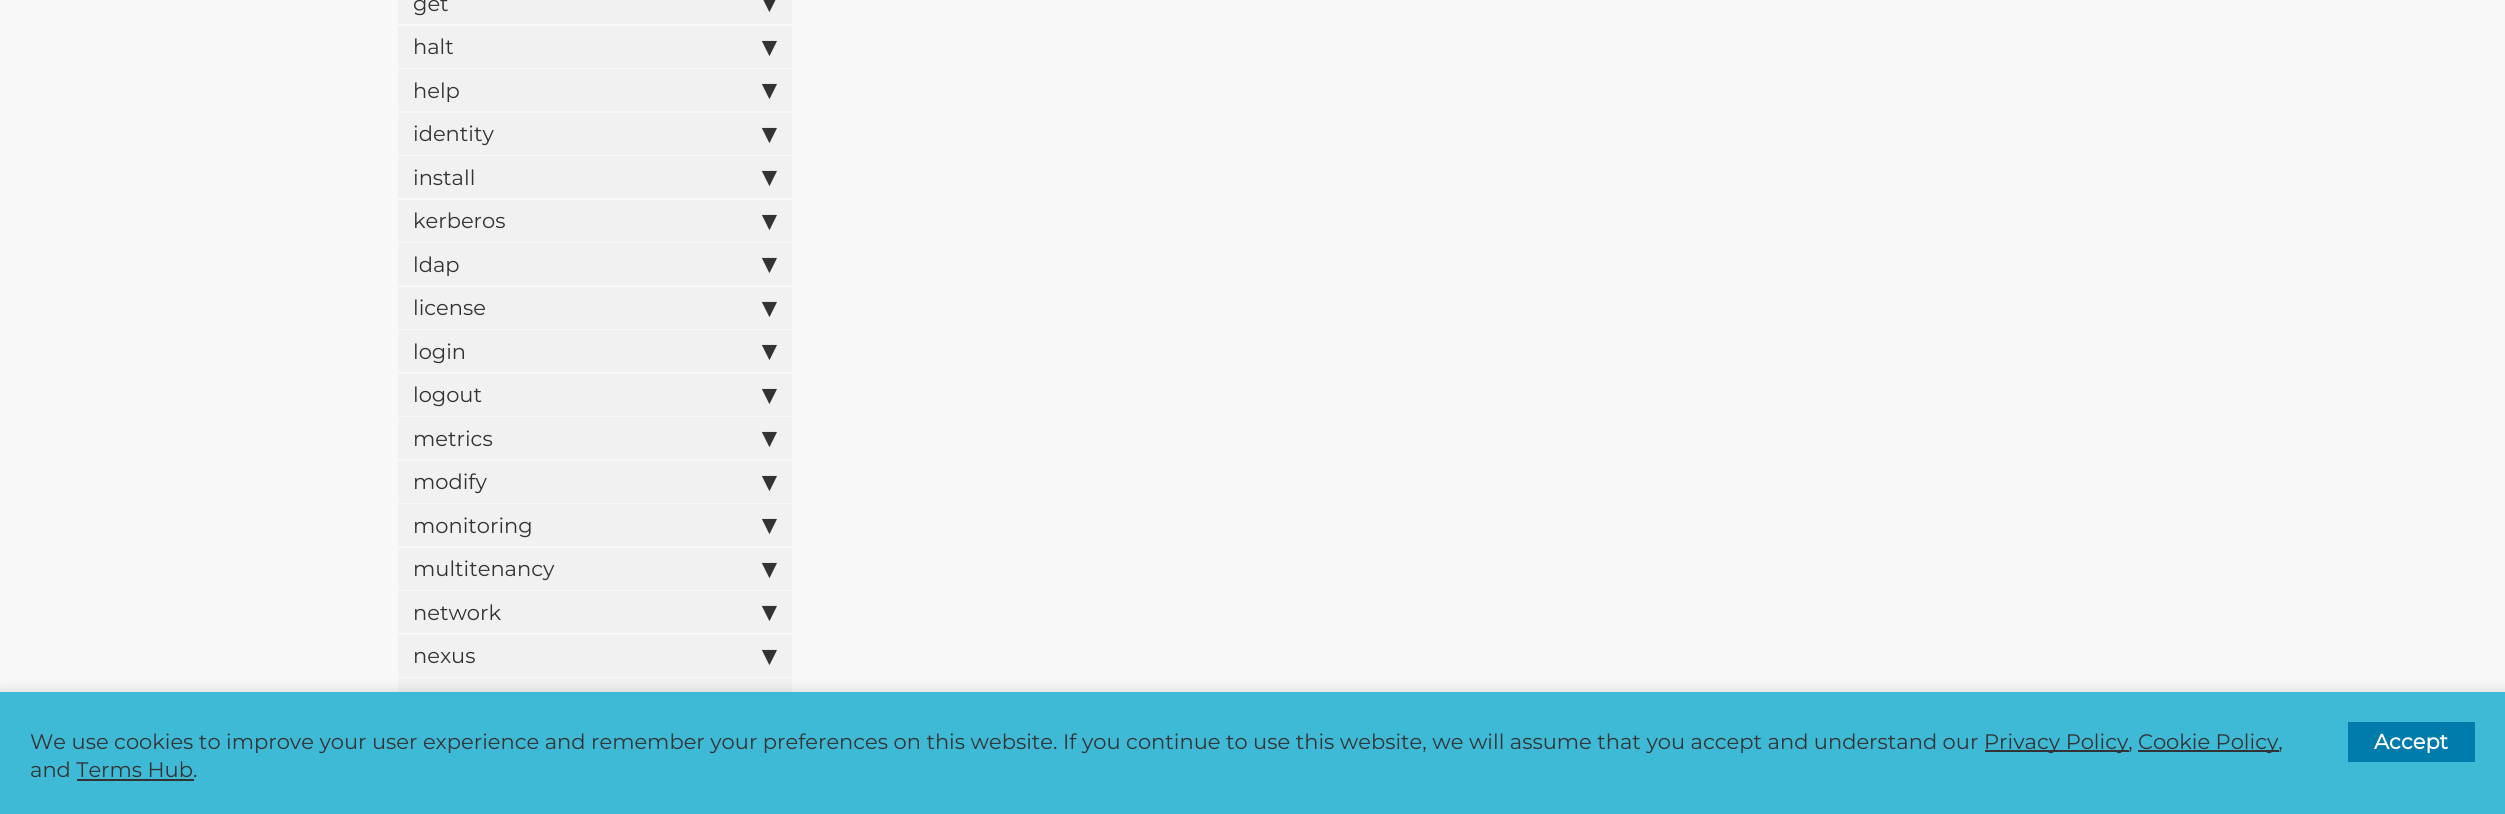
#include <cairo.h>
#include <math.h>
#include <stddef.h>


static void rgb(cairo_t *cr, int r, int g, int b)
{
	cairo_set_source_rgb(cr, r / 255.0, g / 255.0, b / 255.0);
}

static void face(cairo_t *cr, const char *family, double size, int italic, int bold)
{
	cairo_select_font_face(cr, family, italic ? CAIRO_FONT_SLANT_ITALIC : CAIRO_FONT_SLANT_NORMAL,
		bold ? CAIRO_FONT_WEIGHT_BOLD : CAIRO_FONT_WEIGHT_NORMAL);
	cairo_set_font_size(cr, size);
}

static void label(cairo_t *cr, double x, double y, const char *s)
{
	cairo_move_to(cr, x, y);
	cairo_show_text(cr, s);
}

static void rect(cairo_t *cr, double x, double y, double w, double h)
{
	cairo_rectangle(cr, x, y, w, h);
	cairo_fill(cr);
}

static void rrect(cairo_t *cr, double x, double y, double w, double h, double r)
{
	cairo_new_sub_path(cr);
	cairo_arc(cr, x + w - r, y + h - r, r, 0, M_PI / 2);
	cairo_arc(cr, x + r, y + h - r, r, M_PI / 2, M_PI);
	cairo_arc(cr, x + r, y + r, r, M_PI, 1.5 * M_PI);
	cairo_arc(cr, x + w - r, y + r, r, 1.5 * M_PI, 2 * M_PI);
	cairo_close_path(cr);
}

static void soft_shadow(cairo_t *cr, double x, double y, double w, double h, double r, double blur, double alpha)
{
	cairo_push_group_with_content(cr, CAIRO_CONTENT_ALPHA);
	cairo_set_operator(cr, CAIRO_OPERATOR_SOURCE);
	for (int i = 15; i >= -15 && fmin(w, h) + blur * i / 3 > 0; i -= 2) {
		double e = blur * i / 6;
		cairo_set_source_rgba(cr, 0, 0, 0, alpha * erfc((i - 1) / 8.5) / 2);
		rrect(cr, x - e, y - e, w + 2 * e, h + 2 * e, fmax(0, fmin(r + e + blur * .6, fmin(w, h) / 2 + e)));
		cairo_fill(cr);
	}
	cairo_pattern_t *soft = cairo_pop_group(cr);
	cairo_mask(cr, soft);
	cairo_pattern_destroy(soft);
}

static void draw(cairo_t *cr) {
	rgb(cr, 248, 248, 248);
	cairo_paint(cr);
	rgb(cr, 241, 241, 241);
	rect(cr, 398, 0, 394, 24);
	face(cr, "Montserrat Thin", 21, 0, 0);
	rgb(cr, 51, 51, 51);
	label(cr, 413, 11, "get");
	face(cr, "DejaVu Sans", 28, 0, 1);
	label(cr, 762, 12, "▾");
	rgb(cr, 241, 241, 241);
	rect(cr, 398, 26, 394, 42);
	face(cr, "Montserrat Thin", 21, 0, 0);
	rgb(cr, 51, 51, 51);
	label(cr, 413, 54, "halt");
	face(cr, "DejaVu Sans", 28, 0, 1);
	label(cr, 762, 56, "▾");
	rgb(cr, 241, 241, 241);
	rect(cr, 398, 69, 394, 42);
	face(cr, "Montserrat Thin", 21, 0, 0);
	rgb(cr, 51, 51, 51);
	label(cr, 413, 98, "help");
	face(cr, "DejaVu Sans", 28, 0, 1);
	label(cr, 762, 99, "▾");
	rgb(cr, 241, 241, 241);
	rect(cr, 398, 113, 394, 42);
	face(cr, "Montserrat Thin", 21, 0, 0);
	rgb(cr, 51, 51, 51);
	label(cr, 413, 141, "identity");
	face(cr, "DejaVu Sans", 28, 0, 1);
	label(cr, 762, 143, "▾");
	rgb(cr, 241, 241, 241);
	rect(cr, 398, 156, 394, 42);
	face(cr, "Montserrat Thin", 21, 0, 0);
	rgb(cr, 51, 51, 51);
	label(cr, 413, 185, "install");
	face(cr, "DejaVu Sans", 28, 0, 1);
	label(cr, 762, 186, "▾");
	rgb(cr, 241, 241, 241);
	rect(cr, 398, 200, 394, 42);
	face(cr, "Montserrat Thin", 21, 0, 0);
	rgb(cr, 51, 51, 51);
	label(cr, 413, 228, "kerberos");
	face(cr, "DejaVu Sans", 28, 0, 1);
	label(cr, 762, 230, "▾");
	rgb(cr, 241, 241, 241);
	rect(cr, 398, 243, 394, 42);
	face(cr, "Montserrat Thin", 21, 0, 0);
	rgb(cr, 51, 51, 51);
	label(cr, 413, 272, "ldap");
	face(cr, "DejaVu Sans", 28, 0, 1);
	label(cr, 762, 273, "▾");
	rgb(cr, 241, 241, 241);
	rect(cr, 398, 287, 394, 42);
	face(cr, "Montserrat Thin", 21, 0, 0);
	rgb(cr, 51, 51, 51);
	label(cr, 413, 315, "license");
	face(cr, "DejaVu Sans", 28, 0, 1);
	label(cr, 762, 317, "▾");
	rgb(cr, 241, 241, 241);
	rect(cr, 398, 330, 394, 42);
	face(cr, "Montserrat Thin", 21, 0, 0);
	rgb(cr, 51, 51, 51);
	label(cr, 413, 359, "login");
	face(cr, "DejaVu Sans", 28, 0, 1);
	label(cr, 762, 360, "▾");
	rgb(cr, 241, 241, 241);
	rect(cr, 398, 374, 394, 42);
	face(cr, "Montserrat Thin", 21, 0, 0);
	rgb(cr, 51, 51, 51);
	label(cr, 413, 402, "logout");
	face(cr, "DejaVu Sans", 28, 0, 1);
	label(cr, 762, 404, "▾");
	rgb(cr, 241, 241, 241);
	rect(cr, 398, 417, 394, 42);
	face(cr, "Montserrat Thin", 21, 0, 0);
	rgb(cr, 51, 51, 51);
	label(cr, 413, 446, "metrics");
	face(cr, "DejaVu Sans", 28, 0, 1);
	label(cr, 762, 447, "▾");
	rgb(cr, 241, 241, 241);
	rect(cr, 398, 461, 394, 42);
	face(cr, "Montserrat Thin", 21, 0, 0);
	rgb(cr, 51, 51, 51);
	label(cr, 413, 489, "modify");
	face(cr, "DejaVu Sans", 28, 0, 1);
	label(cr, 762, 491, "▾");
	rgb(cr, 241, 241, 241);
	rect(cr, 398, 504, 394, 42);
	face(cr, "Montserrat Thin", 21, 0, 0);
	rgb(cr, 51, 51, 51);
	label(cr, 413, 533, "monitoring");
	face(cr, "DejaVu Sans", 28, 0, 1);
	label(cr, 762, 534, "▾");
	rgb(cr, 241, 241, 241);
	rect(cr, 398, 548, 394, 42);
	face(cr, "Montserrat Thin", 21, 0, 0);
	rgb(cr, 51, 51, 51);
	label(cr, 413, 576, "multitenancy");
	face(cr, "DejaVu Sans", 28, 0, 1);
	label(cr, 762, 578, "▾");
	rgb(cr, 241, 241, 241);
	rect(cr, 398, 591, 394, 42);
	face(cr, "Montserrat Thin", 21, 0, 0);
	rgb(cr, 51, 51, 51);
	label(cr, 413, 620, "network");
	face(cr, "DejaVu Sans", 28, 0, 1);
	label(cr, 762, 621, "▾");
	rgb(cr, 241, 241, 241);
	rect(cr, 398, 635, 394, 42);
	face(cr, "Montserrat Thin", 21, 0, 0);
	rgb(cr, 51, 51, 51);
	label(cr, 413, 663, "nexus");
	face(cr, "DejaVu Sans", 28, 0, 1);
	label(cr, 762, 665, "▾");
	rgb(cr, 241, 241, 241);
	rect(cr, 398, 678, 394, 14);
	rgb(cr, 0, 0, 0);
	soft_shadow(cr, 0, 698, 2505, 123, 0, 9, 0.3);
	rgb(cr, 63, 186, 214);
	rect(cr, 0, 692, 2505, 122);
	face(cr, "Montserrat Thin", 21, 0, 0);
	rgb(cr, 51, 51, 51);
	label(cr, 30, 749, "We use cookies to improve your user experience and remember your preferences on this website. If you continue to use this website, we will assume that you accept and understand our");
	rect(cr, 1985, 750, 144, 2);
	label(cr, 1984, 749, "Privacy Policy,");
	rect(cr, 2138, 750, 141, 2);
	label(cr, 2138, 749, "Cookie Policy,");
	label(cr, 30, 777, "and Terms Hub.");
	rect(cr, 77, 779, 117, 2);
	rgb(cr, 0, 124, 172);
	rect(cr, 2348, 722, 127, 40);
	face(cr, "Montserrat", 21, 0, 1);
	rgb(cr, 255, 255, 255);
	label(cr, 2374, 749, "Accept");
}

int main(void) {
	cairo_surface_t *surface = cairo_image_surface_create(CAIRO_FORMAT_RGB24, 2505, 814);
	cairo_t *cr = cairo_create(surface);
	cairo_font_options_t *options = cairo_font_options_create();
	cairo_font_options_set_hint_metrics(options, CAIRO_HINT_METRICS_OFF);
	cairo_font_options_set_hint_style(options, CAIRO_HINT_STYLE_NONE);
	cairo_set_font_options(cr, options);
	cairo_set_miter_limit(cr, 4);
	draw(cr);
	cairo_surface_write_to_png(surface, "render.png");
	cairo_font_options_destroy(options);
	cairo_destroy(cr);
	cairo_surface_destroy(surface);
	return 0;
}
